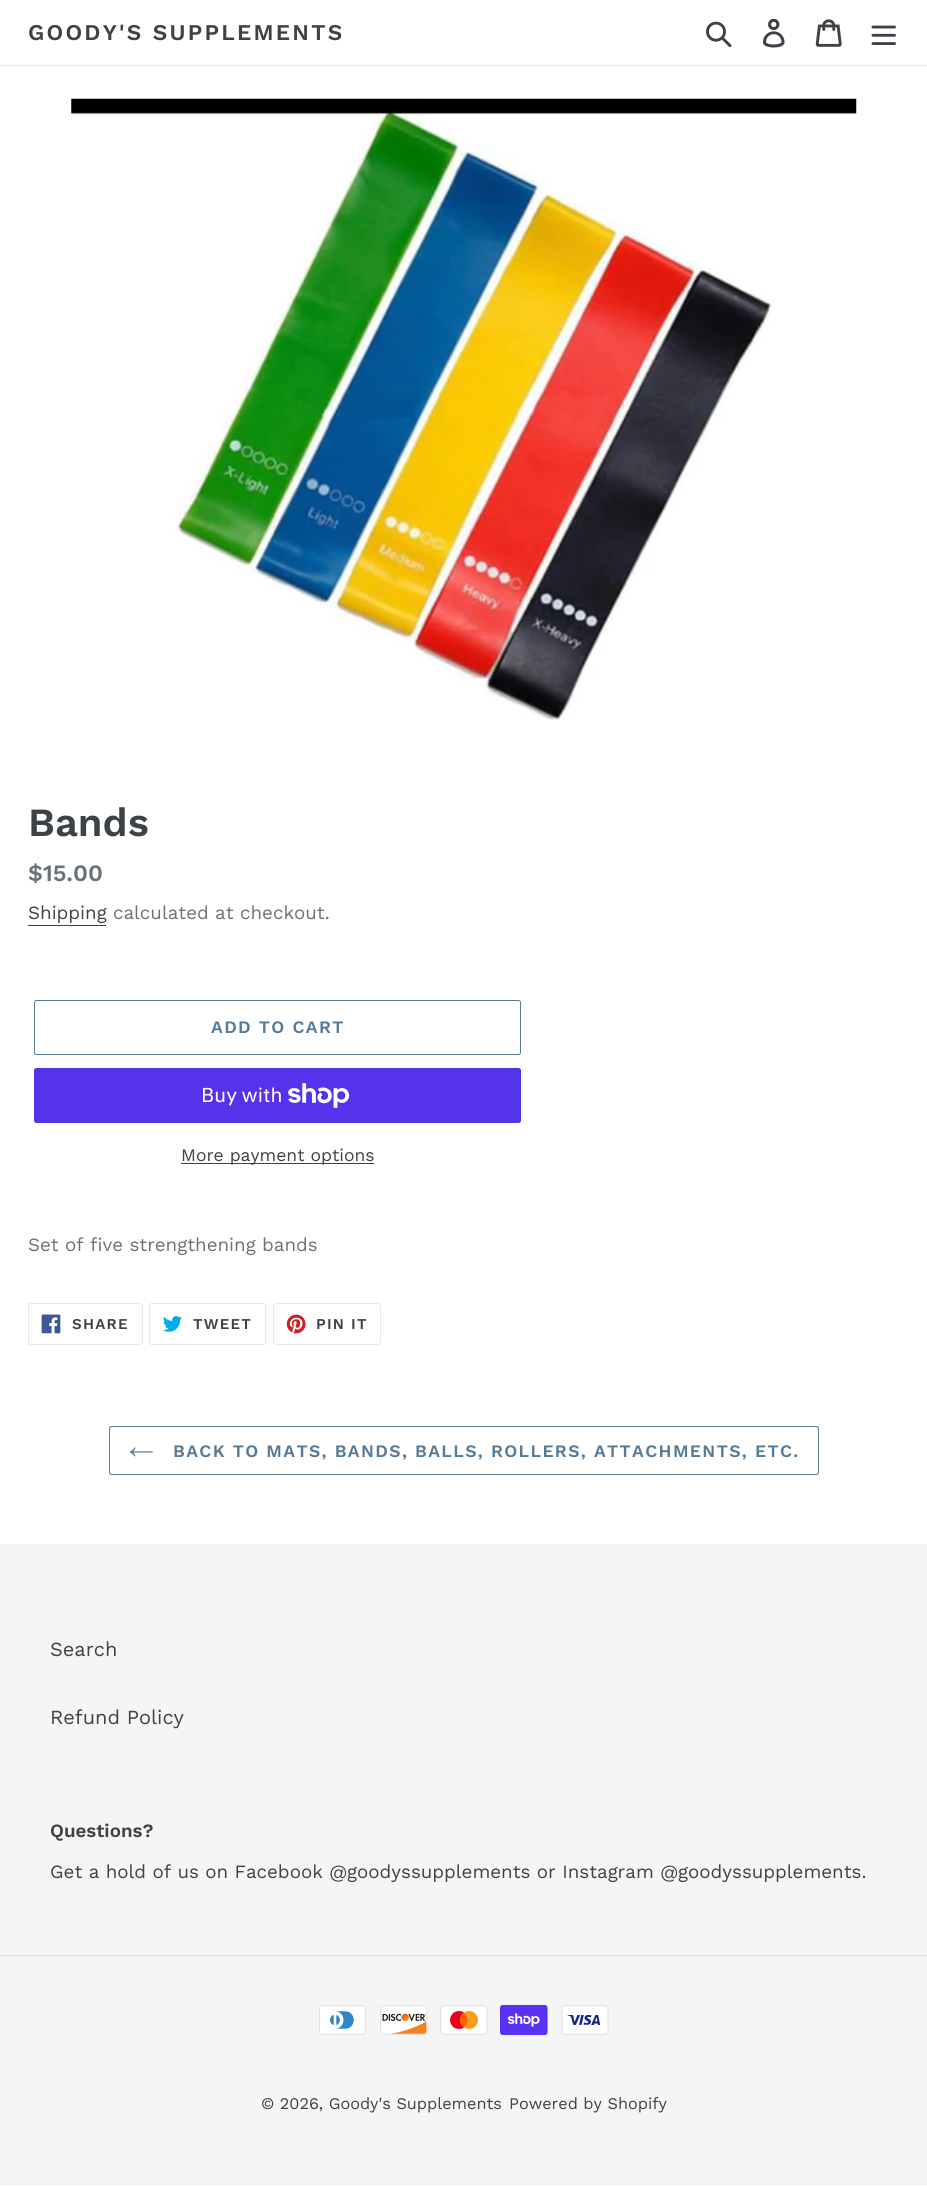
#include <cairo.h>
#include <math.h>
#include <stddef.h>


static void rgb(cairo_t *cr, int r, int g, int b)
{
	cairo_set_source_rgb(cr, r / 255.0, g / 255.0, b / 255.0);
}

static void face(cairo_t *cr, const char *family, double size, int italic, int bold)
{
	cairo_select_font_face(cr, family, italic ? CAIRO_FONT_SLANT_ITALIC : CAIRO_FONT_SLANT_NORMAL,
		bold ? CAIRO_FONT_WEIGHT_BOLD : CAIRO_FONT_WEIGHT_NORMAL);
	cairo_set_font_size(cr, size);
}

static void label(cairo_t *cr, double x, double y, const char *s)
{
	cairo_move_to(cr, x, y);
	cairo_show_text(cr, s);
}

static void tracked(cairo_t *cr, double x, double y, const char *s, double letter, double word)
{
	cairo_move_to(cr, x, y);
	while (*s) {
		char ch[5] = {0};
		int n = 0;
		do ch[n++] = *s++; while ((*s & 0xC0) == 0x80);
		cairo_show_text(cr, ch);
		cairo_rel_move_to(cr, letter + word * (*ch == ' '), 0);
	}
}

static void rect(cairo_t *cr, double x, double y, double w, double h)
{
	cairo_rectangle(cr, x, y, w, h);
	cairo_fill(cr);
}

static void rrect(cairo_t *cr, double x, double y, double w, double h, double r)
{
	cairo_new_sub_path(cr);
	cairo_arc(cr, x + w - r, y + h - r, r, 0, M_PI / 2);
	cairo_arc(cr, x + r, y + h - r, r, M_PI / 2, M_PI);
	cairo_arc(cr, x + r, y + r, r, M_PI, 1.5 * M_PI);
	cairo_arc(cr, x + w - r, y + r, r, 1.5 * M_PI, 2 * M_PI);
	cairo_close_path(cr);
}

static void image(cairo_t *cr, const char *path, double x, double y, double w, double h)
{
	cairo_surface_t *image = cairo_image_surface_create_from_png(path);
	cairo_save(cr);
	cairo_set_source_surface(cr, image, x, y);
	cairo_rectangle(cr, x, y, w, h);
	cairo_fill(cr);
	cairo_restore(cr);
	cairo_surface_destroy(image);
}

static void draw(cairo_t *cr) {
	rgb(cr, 255, 255, 255);
	cairo_paint(cr);
	rgb(cr, 232, 233, 235);
	rect(cr, 0, 65, 927, 1);
	face(cr, "Work Sans SemiBold", 22.5, 0, 0);
	rgb(cr, 61, 66, 70);
	tracked(cr, 28, 40, "GOODY'S SUPPLEMENTS", 2.25, 0);
	image(cr, "image0.png", 706, 21, 26, 27);
	image(cr, "image1.png", 763, 19, 22, 29);
	image(cr, "image2.png", 815, 19, 27, 28);
	image(cr, "image3.png", 871, 25, 25, 20);
	image(cr, "image4.png", 71, 98, 786, 622);
	face(cr, "Work Sans SemiBold", 40, 0, 0);
	label(cr, 28, 836, "Bands");
	face(cr, "Work Sans SemiBold", 23.5, 0, 0);
	rgb(cr, 105, 114, 123);
	label(cr, 28, 881, "$15.00");
	face(cr, "Work Sans", 18.75, 0, 0);
	rgb(cr, 61, 66, 70);
	label(cr, 28, 919, "Shipping");
	rect(cr, 28, 925, 78, 1);
	rgb(cr, 105, 114, 123);
	label(cr, 113, 919, "calculated at checkout.");
	rrect(cr, 34.5, 1000.5, 486, 54, 2);
	rgb(cr, 85, 123, 151);
	cairo_set_line_width(cr, 1);
	cairo_stroke(cr);
	face(cr, "Work Sans SemiBold", 17.5, 0, 0);
	tracked(cr, 211, 1033, "ADD TO CART", 1.4, 0);
	rgb(cr, 84, 51, 235);
	rrect(cr, 34, 1068, 487, 55, 2.5);
	cairo_fill(cr);
	face(cr, "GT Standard", 20, 0, 0);
	rgb(cr, 255, 255, 255);
	label(cr, 201, 1102, "Buy with");
	image(cr, "image5.png", 288, 1083, 62, 25);
	rgb(cr, 61, 66, 70);
	rect(cr, 181, 1163, 193, 1);
	face(cr, "Work Sans", 17.5, 0, 0);
	label(cr, 181, 1161, "More payment options");
	face(cr, "Work Sans", 18.75, 0, 0);
	rgb(cr, 105, 114, 123);
	label(cr, 28, 1251, "Set of five strengthening bands");
	rrect(cr, 28.5, 1303.5, 114, 41, 2);
	rgb(cr, 232, 233, 235);
	cairo_stroke(cr);
	image(cr, "image6.png", 41, 1314, 20, 20);
	face(cr, "Work Sans SemiBold", 15, 0, 0);
	rgb(cr, 61, 66, 70);
	tracked(cr, 72, 1329, "SHARE", 1.25, 0);
	rrect(cr, 149.5, 1303.5, 116, 41, 2);
	rgb(cr, 232, 233, 235);
	cairo_stroke(cr);
	image(cr, "image7.png", 163, 1316, 19, 16);
	rgb(cr, 61, 66, 70);
	tracked(cr, 193, 1329, "TWEET", 1.25, 0);
	rrect(cr, 273.5, 1303.5, 107, 41, 2);
	rgb(cr, 232, 233, 235);
	cairo_stroke(cr);
	image(cr, "image8.png", 286, 1314, 20, 20);
	rgb(cr, 61, 66, 70);
	tracked(cr, 316, 1329, "PIN IT", 1.25, 0);
	rrect(cr, 109.5, 1426.5, 709, 48, 2);
	rgb(cr, 85, 123, 151);
	cairo_stroke(cr);
	image(cr, "image9.png", 129, 1447, 24, 10);
	face(cr, "Work Sans SemiBold", 17.5, 0, 0);
	tracked(cr, 173, 1457, "BACK TO MATS, BANDS, BALLS, ROLLERS, ATTACHMENTS, ETC.", 1.4, 0);
	rgb(cr, 245, 245, 245);
	rect(cr, 0, 1544, 927, 642);
	face(cr, "Work Sans", 20, 0, 0);
	rgb(cr, 61, 66, 70);
	label(cr, 50, 1656, "Search");
	label(cr, 50, 1724, "Refund Policy");
	face(cr, "Work Sans SemiBold", 18.75, 0, 0);
	label(cr, 50, 1837, "Questions?");
	face(cr, "Work Sans", 18.75, 0, 0);
	label(cr, 50, 1878, "Get a hold of us on Facebook @goodyssupplements or Instagram @goodyssupplements.");
	rgb(cr, 220, 220, 220);
	rect(cr, 0, 1955, 927, 1);
	image(cr, "image10.png", 319, 2005, 47, 30);
	image(cr, "image11.png", 380, 2005, 48, 30);
	image(cr, "image12.png", 440, 2005, 48, 30);
	image(cr, "image13.png", 500, 2005, 48, 30);
	image(cr, "image14.png", 561, 2005, 48, 30);
	face(cr, "Work Sans", 16.25, 0, 0);
	rgb(cr, 61, 66, 70);
	label(cr, 261, 2109, "© 2026, Goody's Supplements");
	label(cr, 509, 2109, "Powered by Shopify");
}

int main(void) {
	cairo_surface_t *surface = cairo_image_surface_create(CAIRO_FORMAT_RGB24, 927, 2198);
	cairo_t *cr = cairo_create(surface);
	cairo_font_options_t *options = cairo_font_options_create();
	cairo_font_options_set_hint_metrics(options, CAIRO_HINT_METRICS_OFF);
	cairo_font_options_set_hint_style(options, CAIRO_HINT_STYLE_NONE);
	cairo_set_font_options(cr, options);
	cairo_set_miter_limit(cr, 4);
	draw(cr);
	cairo_surface_write_to_png(surface, "render.png");
	cairo_font_options_destroy(options);
	cairo_destroy(cr);
	cairo_surface_destroy(surface);
	return 0;
}
